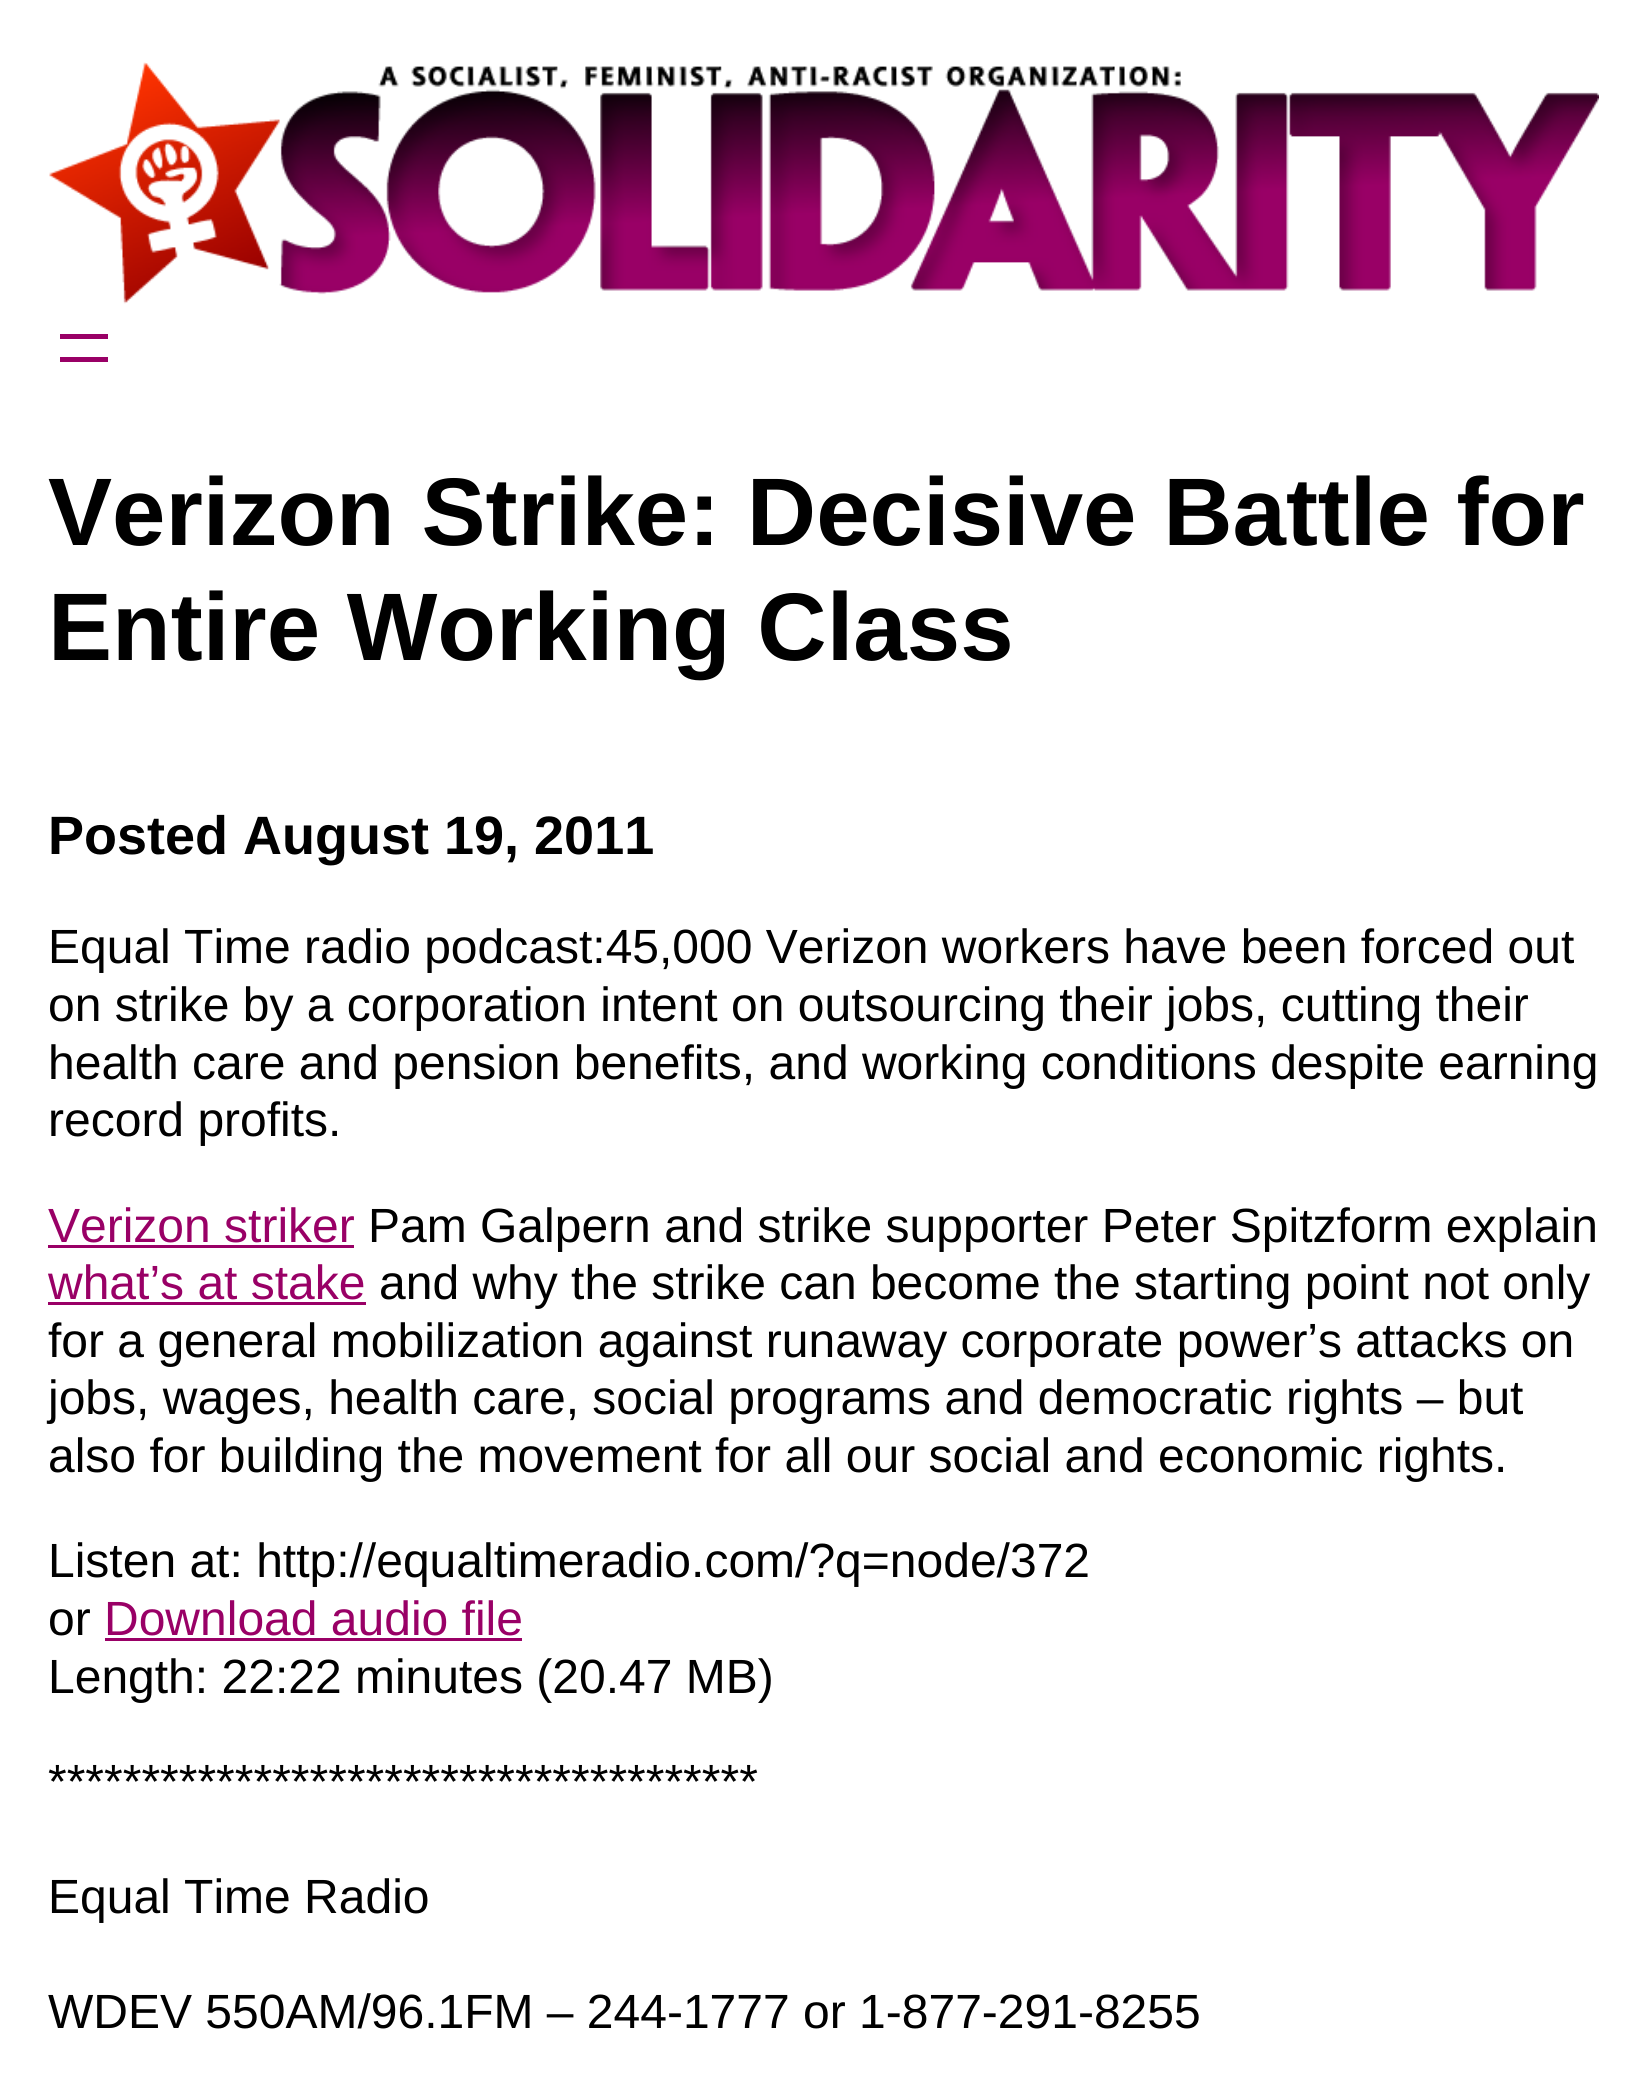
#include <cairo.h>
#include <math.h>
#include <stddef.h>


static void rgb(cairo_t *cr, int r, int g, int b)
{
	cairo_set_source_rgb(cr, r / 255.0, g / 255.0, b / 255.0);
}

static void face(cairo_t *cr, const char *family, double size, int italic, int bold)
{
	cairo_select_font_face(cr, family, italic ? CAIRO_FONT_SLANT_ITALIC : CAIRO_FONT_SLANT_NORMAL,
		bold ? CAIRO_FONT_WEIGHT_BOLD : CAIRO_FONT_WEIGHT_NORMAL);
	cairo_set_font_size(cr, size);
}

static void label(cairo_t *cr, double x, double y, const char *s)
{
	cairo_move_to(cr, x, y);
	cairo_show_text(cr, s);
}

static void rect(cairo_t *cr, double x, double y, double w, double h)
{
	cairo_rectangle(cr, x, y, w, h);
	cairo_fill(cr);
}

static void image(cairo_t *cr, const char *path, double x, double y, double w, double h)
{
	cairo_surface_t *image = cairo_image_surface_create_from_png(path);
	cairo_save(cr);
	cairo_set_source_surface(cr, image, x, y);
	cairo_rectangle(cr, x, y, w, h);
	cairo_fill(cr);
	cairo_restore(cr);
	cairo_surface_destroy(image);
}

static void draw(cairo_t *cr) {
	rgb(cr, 255, 255, 255);
	cairo_paint(cr);
	image(cr, "image0.png", 49, 62, 1550, 242);
	rgb(cr, 153, 0, 102);
	rect(cr, 60, 334, 48, 5);
	rect(cr, 60, 357, 48, 5);
	face(cr, "Liberation Sans", 96, 0, 1);
	rgb(cr, 0, 0, 0);
	label(cr, 48, 545, "Verizon Strike: Decisive Battle for");
	label(cr, 48, 660, "Entire Working Class");
	face(cr, "Liberation Sans", 54, 0, 1);
	label(cr, 48, 854, "Posted August 19, 2011");
	face(cr, "Liberation Sans", 48, 0, 0);
	label(cr, 48, 963, "Equal Time radio podcast:45,000 Verizon workers have been forced out");
	label(cr, 48, 1021, "on strike by a corporation intent on outsourcing their jobs, cutting their");
	label(cr, 48, 1079, "health care and pension benefits, and working conditions despite earning");
	label(cr, 48, 1136, "record profits.");
	rgb(cr, 153, 0, 102);
	label(cr, 48, 1242, "Verizon striker");
	rect(cr, 48, 1245, 306, 3);
	rgb(cr, 0, 0, 0);
	label(cr, 368, 1242, "Pam Galpern and strike supporter Peter Spitzform explain");
	rgb(cr, 153, 0, 102);
	label(cr, 48, 1299, "what’s at stake");
	rect(cr, 48, 1302, 318, 3);
	rgb(cr, 0, 0, 0);
	label(cr, 379, 1299, "and why the strike can become the starting point not only");
	label(cr, 48, 1357, "for a general mobilization against runaway corporate power’s attacks on");
	label(cr, 48, 1414, "jobs, wages, health care, social programs and democratic rights – but");
	label(cr, 48, 1472, "also for building the movement for all our social and economic rights.");
	label(cr, 48, 1577, "Listen at: http://equaltimeradio.com/?q=node/372");
	label(cr, 48, 1635, "or");
	rgb(cr, 153, 0, 102);
	label(cr, 104, 1635, "Download audio file");
	rect(cr, 105, 1638, 417, 3);
	rgb(cr, 0, 0, 0);
	label(cr, 48, 1693, "Length: 22:22 minutes (20.47 MB)");
	label(cr, 48, 1798, "**************************************");
	label(cr, 48, 1913, "Equal Time Radio");
	label(cr, 48, 2028, "WDEV 550AM/96.1FM – 244-1777 or 1-877-291-8255");
}

int main(void) {
	cairo_surface_t *surface = cairo_image_surface_create(CAIRO_FORMAT_RGB24, 1646, 2081);
	cairo_t *cr = cairo_create(surface);
	cairo_font_options_t *options = cairo_font_options_create();
	cairo_font_options_set_hint_metrics(options, CAIRO_HINT_METRICS_OFF);
	cairo_font_options_set_hint_style(options, CAIRO_HINT_STYLE_NONE);
	cairo_set_font_options(cr, options);
	cairo_set_miter_limit(cr, 4);
	draw(cr);
	cairo_surface_write_to_png(surface, "render.png");
	cairo_font_options_destroy(options);
	cairo_destroy(cr);
	cairo_surface_destroy(surface);
	return 0;
}
